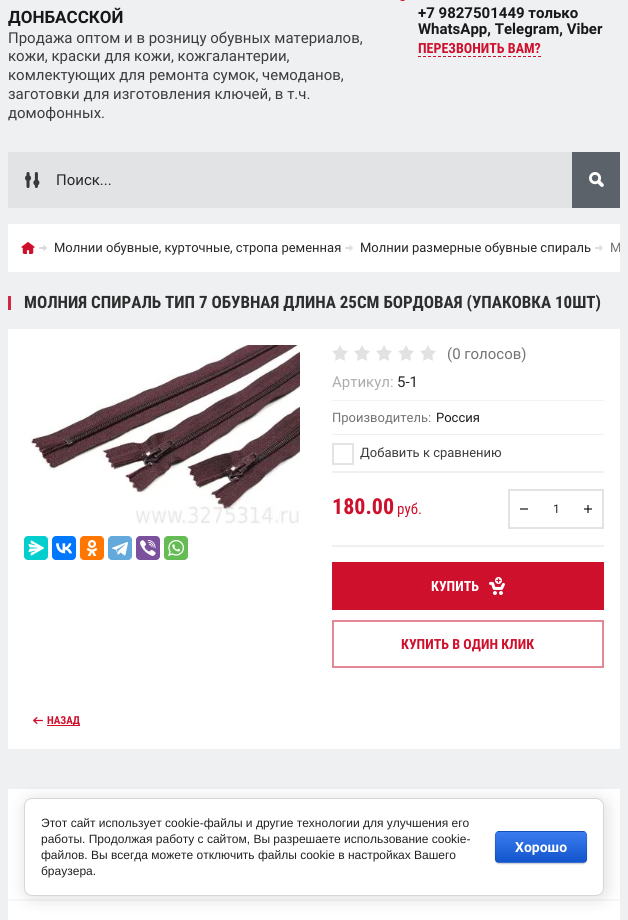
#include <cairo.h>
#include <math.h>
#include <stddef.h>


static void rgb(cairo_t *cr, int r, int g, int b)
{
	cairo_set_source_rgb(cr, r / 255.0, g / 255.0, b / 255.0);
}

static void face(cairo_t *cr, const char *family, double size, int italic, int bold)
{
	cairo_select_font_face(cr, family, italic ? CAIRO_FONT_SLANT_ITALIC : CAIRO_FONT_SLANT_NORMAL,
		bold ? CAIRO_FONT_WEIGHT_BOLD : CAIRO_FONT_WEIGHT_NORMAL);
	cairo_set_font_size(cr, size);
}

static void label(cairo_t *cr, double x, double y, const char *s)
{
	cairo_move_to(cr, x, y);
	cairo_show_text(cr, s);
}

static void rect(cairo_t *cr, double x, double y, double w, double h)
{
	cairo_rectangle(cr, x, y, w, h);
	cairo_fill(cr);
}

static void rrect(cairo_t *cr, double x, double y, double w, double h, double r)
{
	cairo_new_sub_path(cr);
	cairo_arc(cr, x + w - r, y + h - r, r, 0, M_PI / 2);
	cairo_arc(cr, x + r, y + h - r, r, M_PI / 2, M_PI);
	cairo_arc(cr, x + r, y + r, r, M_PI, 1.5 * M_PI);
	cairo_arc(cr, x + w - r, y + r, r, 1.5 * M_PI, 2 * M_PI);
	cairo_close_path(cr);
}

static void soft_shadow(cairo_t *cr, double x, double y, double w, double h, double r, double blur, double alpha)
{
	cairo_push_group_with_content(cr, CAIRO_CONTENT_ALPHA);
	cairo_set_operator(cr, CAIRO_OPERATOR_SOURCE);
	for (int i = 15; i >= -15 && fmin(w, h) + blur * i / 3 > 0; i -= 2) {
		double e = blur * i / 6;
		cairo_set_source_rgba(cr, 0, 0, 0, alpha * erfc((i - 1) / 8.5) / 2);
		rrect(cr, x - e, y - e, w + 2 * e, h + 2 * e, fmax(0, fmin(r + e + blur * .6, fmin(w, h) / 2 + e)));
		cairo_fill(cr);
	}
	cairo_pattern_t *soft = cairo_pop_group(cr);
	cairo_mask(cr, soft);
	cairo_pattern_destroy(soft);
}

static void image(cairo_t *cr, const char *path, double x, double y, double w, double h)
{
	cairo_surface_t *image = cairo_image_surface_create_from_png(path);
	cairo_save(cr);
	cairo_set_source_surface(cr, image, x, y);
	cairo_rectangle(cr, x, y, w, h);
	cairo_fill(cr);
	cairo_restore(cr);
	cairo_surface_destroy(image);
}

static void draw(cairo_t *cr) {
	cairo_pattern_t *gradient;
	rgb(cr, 238, 240, 242);
	cairo_paint(cr);
	face(cr, "Roboto", 17, 0, 1);
	rgb(cr, 24, 24, 24);
	label(cr, 8, 23, "ДОНБАССКОЙ");
	face(cr, "Roboto", 15, 0, 0);
	rgb(cr, 60, 60, 61);
	label(cr, 8, 43, "Продажа оптом и в розницу обувных материалов,");
	label(cr, 8, 61, "кожи, краски для кожи, кожгалантерии,");
	label(cr, 8, 80, "комлектующих для ремонта сумок, чемоданов,");
	label(cr, 8, 99, "заготовки для изготовления ключей, в т.ч.");
	label(cr, 8, 118, "домофонных.");
	image(cr, "image0.png", 400, 0, 5, 1);
	face(cr, "Roboto", 15, 0, 1);
	rgb(cr, 24, 24, 24);
	label(cr, 418, 18, "+7 9827501449 только");
	label(cr, 418, 34, "WhatsApp, Telegram, Viber");
	face(cr, "Roboto Condensed", 14, 0, 1);
	rgb(cr, 207, 16, 45);
	label(cr, 418, 53, "ПЕРЕЗВОНИТЬ ВАМ?");
	cairo_new_path(cr);
	cairo_move_to(cr, 418, 56.5);
	cairo_line_to(cr, 541, 56.5);
	cairo_set_line_width(cr, 1);
	cairo_set_dash(cr, (double[]){3, 2}, 2, 0);
	cairo_stroke(cr);
	rgb(cr, 225, 227, 229);
	rect(cr, 8, 152, 564, 56);
	image(cr, "image1.png", 25, 172, 15, 16);
	face(cr, "Roboto", 15, 0, 0);
	rgb(cr, 39, 39, 39);
	label(cr, 56, 185, "Поиск...");
	rgb(cr, 91, 98, 106);
	rect(cr, 572, 152, 48, 56);
	image(cr, "image2.png", 589, 172, 15, 15);
	rgb(cr, 255, 255, 255);
	rect(cr, 8, 224, 612, 48);
	image(cr, "image3.png", 21, 242, 14, 12);
	image(cr, "image4.png", 39, 245, 8, 6);
	face(cr, "Roboto", 13, 0, 0);
	rgb(cr, 39, 39, 39);
	label(cr, 54, 252, "Молнии обувные, курточные, стропа ременная");
	image(cr, "image5.png", 345, 245, 8, 6);
	label(cr, 360, 252, "Молнии размерные обувные спираль");
	image(cr, "image5.png", 595, 245, 8, 6);
	cairo_save(cr);
	cairo_rectangle(cr, 8, 224, 612, 48);
	cairo_clip(cr);
	rgb(cr, 115, 115, 115);
	label(cr, 610, 252, "М");
	cairo_restore(cr);
	rgb(cr, 210, 38, 65);
	rect(cr, 8, 296, 3, 14);
	face(cr, "Roboto Condensed", 17, 0, 1);
	rgb(cr, 45, 46, 46);
	label(cr, 24, 308, "МОЛНИЯ СПИРАЛЬ ТИП 7 ОБУВНАЯ ДЛИНА 25СМ БОРДОВАЯ (УПАКОВКА 10ШТ)");
	rgb(cr, 255, 255, 255);
	rect(cr, 8, 329, 612, 420);
	rgb(cr, 115, 115, 115);
	rect(cr, 587, 505, 2, 8);
	image(cr, "image6.png", 30, 345, 270, 179);
	rgb(cr, 3, 206, 206);
	rrect(cr, 24, 536, 24, 24, 4);
	cairo_fill(cr);
	image(cr, "image7.png", 28, 540, 16, 16);
	rgb(cr, 0, 119, 255);
	rrect(cr, 52, 536, 24, 24, 4);
	cairo_fill(cr);
	image(cr, "image8.png", 56, 543, 16, 11);
	rgb(cr, 255, 119, 0);
	rrect(cr, 80, 536, 24, 24, 4);
	cairo_fill(cr);
	image(cr, "image9.png", 86, 540, 12, 16);
	rgb(cr, 100, 169, 220);
	rrect(cr, 108, 536, 24, 24, 4);
	cairo_fill(cr);
	image(cr, "image10.png", 112, 542, 16, 14);
	rgb(cr, 123, 81, 157);
	rrect(cr, 136, 536, 24, 24, 4);
	cairo_fill(cr);
	image(cr, "image11.png", 140, 540, 16, 16);
	rgb(cr, 101, 188, 84);
	rrect(cr, 164, 536, 24, 24, 4);
	cairo_fill(cr);
	image(cr, "image12.png", 168, 540, 16, 16);
	image(cr, "image13.png", 332, 345, 104, 16);
	face(cr, "Roboto", 15, 0, 0);
	rgb(cr, 115, 115, 115);
	label(cr, 447, 359, "(0 голосов)");
	rgb(cr, 241, 242, 244);
	rect(cr, 332, 400, 272, 1);
	rgb(cr, 173, 173, 173);
	label(cr, 332, 387, "Артикул:");
	rgb(cr, 39, 39, 39);
	label(cr, 397, 387, "5-1");
	face(cr, "Roboto", 13, 0, 0);
	rgb(cr, 115, 115, 115);
	label(cr, 332, 422, "Производитель:");
	rgb(cr, 24, 24, 24);
	label(cr, 436, 422, "Россия");
	rgb(cr, 238, 240, 242);
	rect(cr, 332, 434, 272, 1);
	cairo_rectangle(cr, 333, 444, 20, 20);
	rgb(cr, 225, 227, 229);
	cairo_set_line_width(cr, 2);
	cairo_set_dash(cr, NULL, 0, 0);
	cairo_stroke(cr);
	rgb(cr, 60, 60, 61);
	label(cr, 360, 457, "Добавить к сравнению");
	rgb(cr, 238, 240, 242);
	rect(cr, 332, 471, 272, 2);
	rect(cr, 332, 545, 272, 2);
	face(cr, "Roboto Condensed", 22, 0, 1);
	rgb(cr, 207, 16, 45);
	label(cr, 332, 514, "180.00");
	face(cr, "Roboto Condensed", 15, 0, 0);
	label(cr, 397, 514, "руб.");
	cairo_rectangle(cr, 509, 490, 94, 38);
	rgb(cr, 225, 227, 229);
	cairo_stroke(cr);
	rgb(cr, 115, 115, 115);
	rect(cr, 520, 508, 8, 2);
	face(cr, "Roboto", 12, 0, 0);
	rgb(cr, 39, 39, 39);
	label(cr, 553, 513, "1");
	rgb(cr, 115, 115, 115);
	rect(cr, 584, 508, 8, 2);
	rgb(cr, 52, 52, 52);
	rect(cr, 587, 508, 2, 2);
	rgb(cr, 207, 16, 45);
	rect(cr, 332, 562, 272, 48);
	image(cr, "image14.png", 489, 577, 16, 18);
	face(cr, "Roboto Condensed", 14, 0, 1);
	rgb(cr, 255, 255, 255);
	label(cr, 431, 591, "КУПИТЬ");
	cairo_rectangle(cr, 333, 621, 270, 46);
	rgb(cr, 231, 136, 150);
	cairo_stroke(cr);
	rgb(cr, 207, 16, 45);
	label(cr, 401, 649, "КУПИТЬ В ОДИН КЛИК");
	image(cr, "image15.png", 33, 717, 10, 7);
	rect(cr, 47, 725, 33, 1);
	face(cr, "Roboto Condensed", 11, 0, 1);
	label(cr, 47, 724, "НАЗАД");
	rgb(cr, 255, 255, 255);
	rect(cr, 8, 789, 612, 131);
	rgb(cr, 247, 247, 247);
	rect(cr, 8, 899, 612, 2);
	rgb(cr, 0, 0, 0);
	soft_shadow(cr, 26, 800, 580, 98, 8, 9, 0.14);
	rgb(cr, 255, 255, 255);
	rrect(cr, 24.5, 798.5, 579, 97, 7.5);
	cairo_fill_preserve(cr);
	rgb(cr, 214, 214, 214);
	cairo_set_line_width(cr, 1);
	cairo_stroke(cr);
	face(cr, "Liberation Sans", 12, 0, 0);
	rgb(cr, 33, 33, 33);
	label(cr, 41, 827, "Этот сайт использует cookie-файлы и другие технологии для улучшения его");
	label(cr, 41, 843, "работы. Продолжая работу с сайтом, Вы разрешаете использование cookie-");
	label(cr, 41, 859, "файлов. Вы всегда можете отключить файлы cookie в настройках Вашего");
	label(cr, 41, 875, "браузера.");
	rgb(cr, 0, 0, 0);
	soft_shadow(cr, 495, 832, 92, 32, 4, 0.5, 0.2);
	cairo_save(cr);
	rrect(cr, 495, 831, 92, 32, 4);
	cairo_clip(cr);
	gradient = cairo_pattern_create_linear(541, 802, 541, 832);
	cairo_pattern_add_color_stop_rgba(gradient, 0, 0.231, 0.486, 0.937, 1);
	cairo_pattern_add_color_stop_rgba(gradient, 1, 0.067, 0.333, 0.8, 1);
	cairo_set_source(cr, gradient);
	cairo_pattern_destroy(gradient);
	rect(cr, 495, 831, 92, 1);
	gradient = cairo_pattern_create_linear(541, 832, 541, 862);
	cairo_pattern_add_color_stop_rgba(gradient, 0, 0.231, 0.486, 0.937, 1);
	cairo_pattern_add_color_stop_rgba(gradient, 1, 0.067, 0.333, 0.8, 1);
	cairo_set_source(cr, gradient);
	cairo_pattern_destroy(gradient);
	rect(cr, 495, 832, 92, 30);
	gradient = cairo_pattern_create_linear(541, 862, 541, 892);
	cairo_pattern_add_color_stop_rgba(gradient, 0, 0.231, 0.486, 0.937, 1);
	cairo_pattern_add_color_stop_rgba(gradient, 1, 0.067, 0.333, 0.8, 1);
	cairo_set_source(cr, gradient);
	cairo_pattern_destroy(gradient);
	rect(cr, 495, 862, 92, 1);
	cairo_restore(cr);
	rrect(cr, 495.5, 831.5, 91, 31, 3.5);
	cairo_set_source_rgba(cr, 0, 0, 0, 0.1);
	cairo_stroke(cr);
	face(cr, "Roboto", 14, 0, 1);
	rgb(cr, 255, 255, 255);
	label(cr, 515, 852, "Хорошо");
}

int main(void) {
	cairo_surface_t *surface = cairo_image_surface_create(CAIRO_FORMAT_RGB24, 628, 920);
	cairo_t *cr = cairo_create(surface);
	cairo_font_options_t *options = cairo_font_options_create();
	cairo_font_options_set_hint_metrics(options, CAIRO_HINT_METRICS_OFF);
	cairo_font_options_set_hint_style(options, CAIRO_HINT_STYLE_NONE);
	cairo_set_font_options(cr, options);
	cairo_set_miter_limit(cr, 4);
	draw(cr);
	cairo_surface_write_to_png(surface, "render.png");
	cairo_font_options_destroy(options);
	cairo_destroy(cr);
	cairo_surface_destroy(surface);
	return 0;
}
